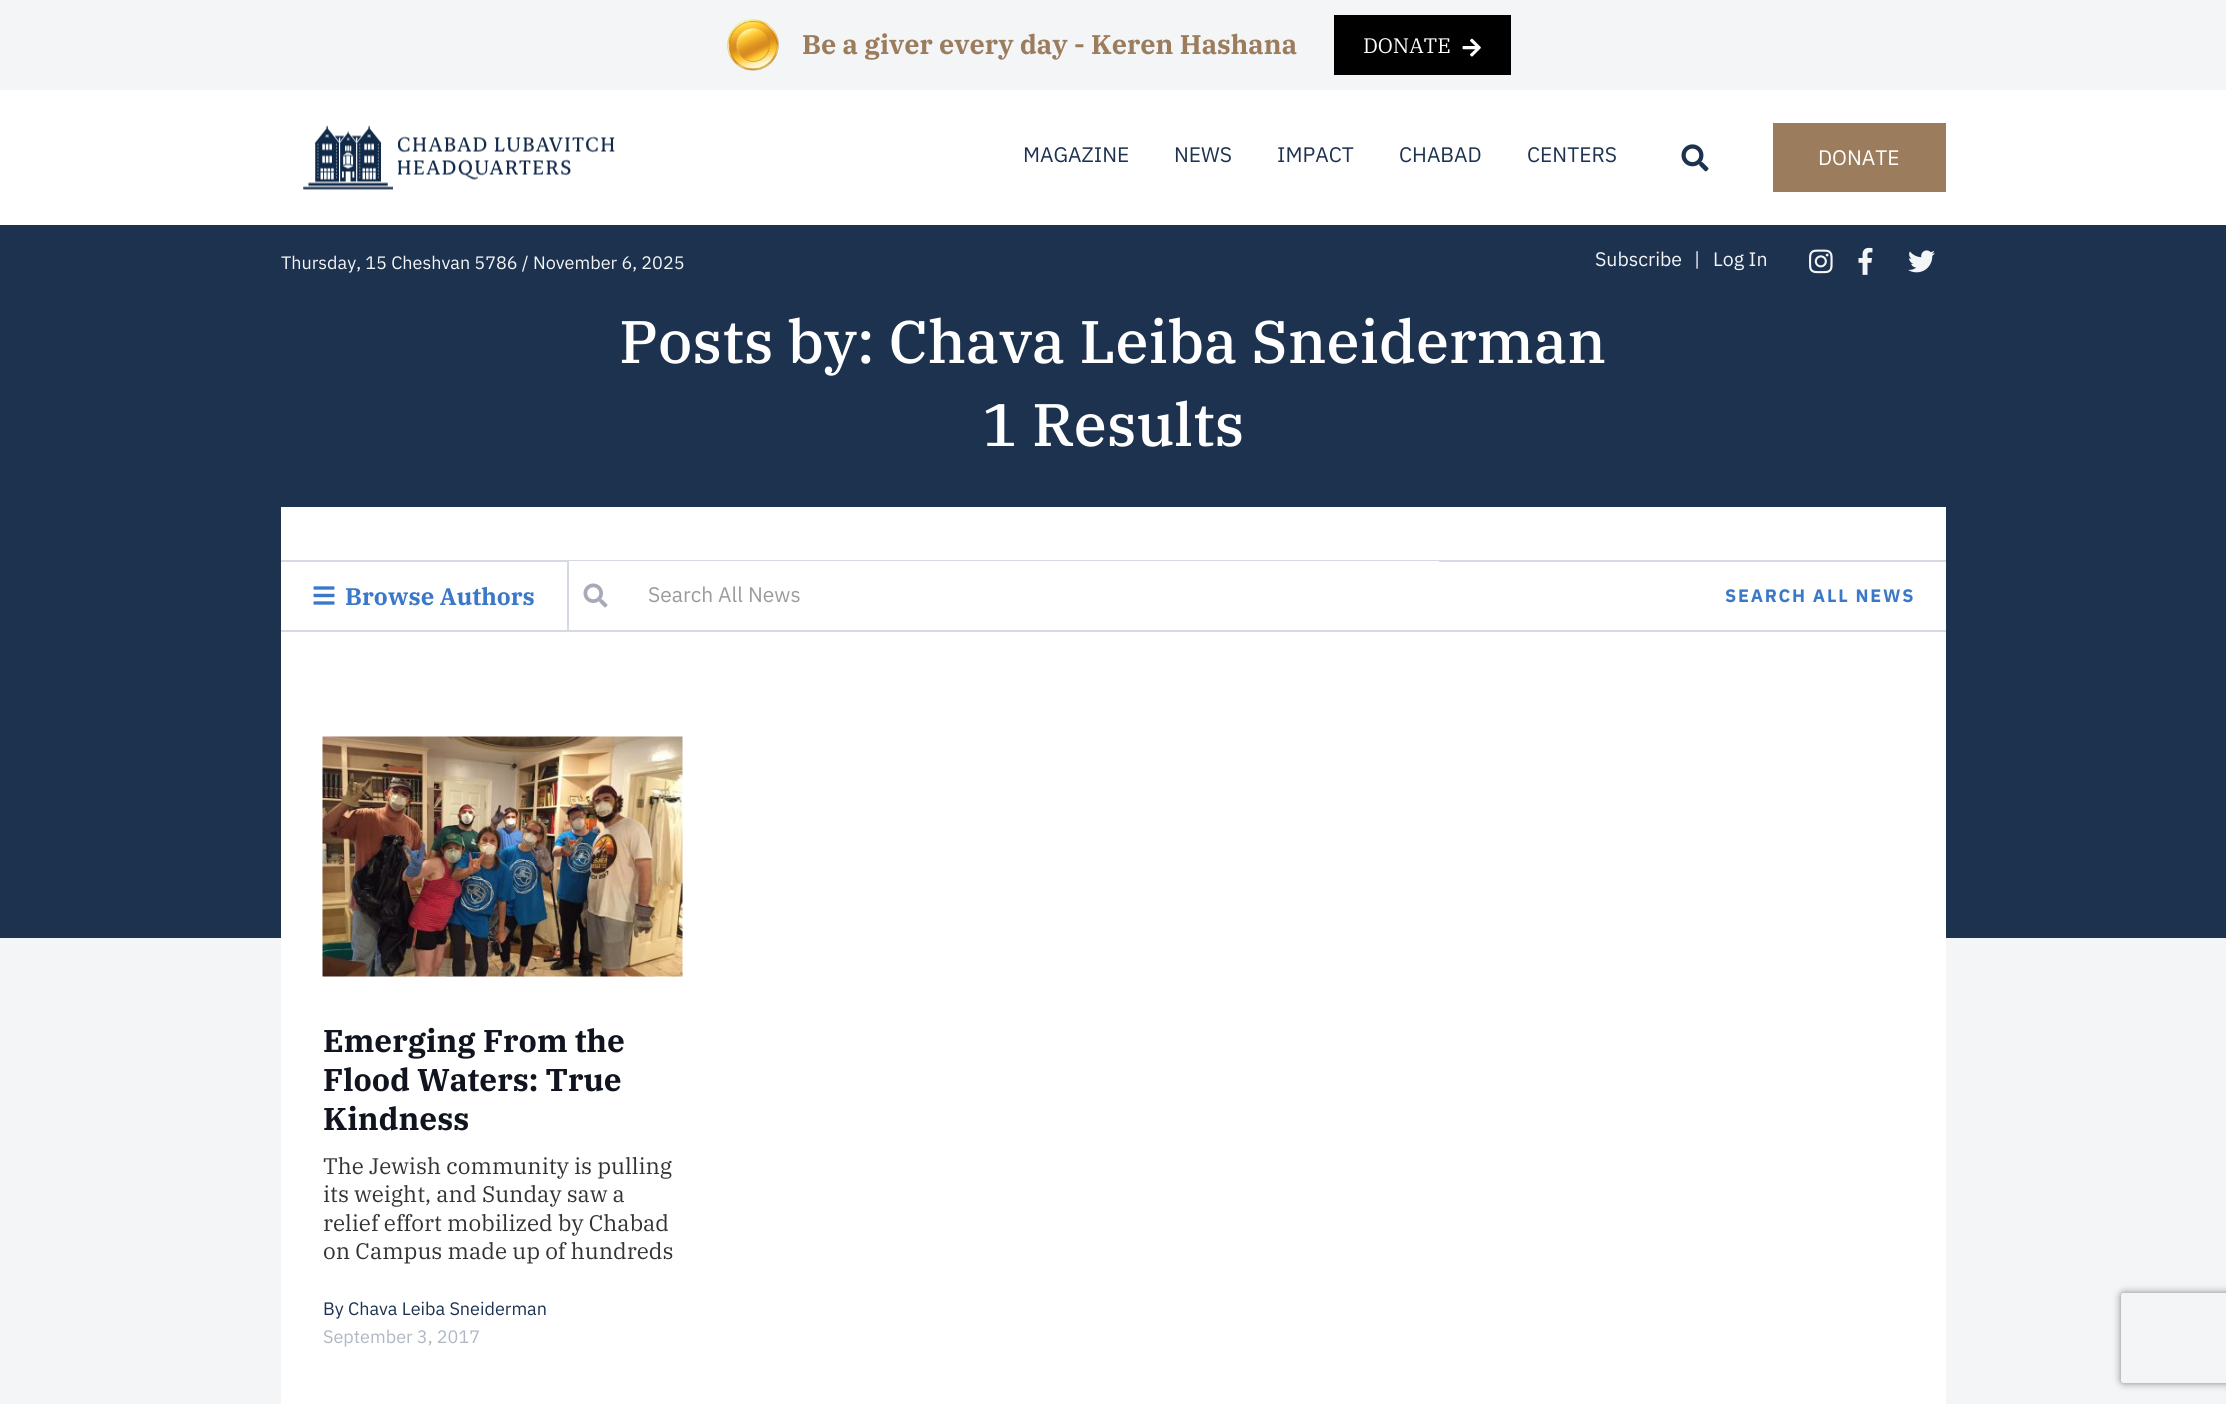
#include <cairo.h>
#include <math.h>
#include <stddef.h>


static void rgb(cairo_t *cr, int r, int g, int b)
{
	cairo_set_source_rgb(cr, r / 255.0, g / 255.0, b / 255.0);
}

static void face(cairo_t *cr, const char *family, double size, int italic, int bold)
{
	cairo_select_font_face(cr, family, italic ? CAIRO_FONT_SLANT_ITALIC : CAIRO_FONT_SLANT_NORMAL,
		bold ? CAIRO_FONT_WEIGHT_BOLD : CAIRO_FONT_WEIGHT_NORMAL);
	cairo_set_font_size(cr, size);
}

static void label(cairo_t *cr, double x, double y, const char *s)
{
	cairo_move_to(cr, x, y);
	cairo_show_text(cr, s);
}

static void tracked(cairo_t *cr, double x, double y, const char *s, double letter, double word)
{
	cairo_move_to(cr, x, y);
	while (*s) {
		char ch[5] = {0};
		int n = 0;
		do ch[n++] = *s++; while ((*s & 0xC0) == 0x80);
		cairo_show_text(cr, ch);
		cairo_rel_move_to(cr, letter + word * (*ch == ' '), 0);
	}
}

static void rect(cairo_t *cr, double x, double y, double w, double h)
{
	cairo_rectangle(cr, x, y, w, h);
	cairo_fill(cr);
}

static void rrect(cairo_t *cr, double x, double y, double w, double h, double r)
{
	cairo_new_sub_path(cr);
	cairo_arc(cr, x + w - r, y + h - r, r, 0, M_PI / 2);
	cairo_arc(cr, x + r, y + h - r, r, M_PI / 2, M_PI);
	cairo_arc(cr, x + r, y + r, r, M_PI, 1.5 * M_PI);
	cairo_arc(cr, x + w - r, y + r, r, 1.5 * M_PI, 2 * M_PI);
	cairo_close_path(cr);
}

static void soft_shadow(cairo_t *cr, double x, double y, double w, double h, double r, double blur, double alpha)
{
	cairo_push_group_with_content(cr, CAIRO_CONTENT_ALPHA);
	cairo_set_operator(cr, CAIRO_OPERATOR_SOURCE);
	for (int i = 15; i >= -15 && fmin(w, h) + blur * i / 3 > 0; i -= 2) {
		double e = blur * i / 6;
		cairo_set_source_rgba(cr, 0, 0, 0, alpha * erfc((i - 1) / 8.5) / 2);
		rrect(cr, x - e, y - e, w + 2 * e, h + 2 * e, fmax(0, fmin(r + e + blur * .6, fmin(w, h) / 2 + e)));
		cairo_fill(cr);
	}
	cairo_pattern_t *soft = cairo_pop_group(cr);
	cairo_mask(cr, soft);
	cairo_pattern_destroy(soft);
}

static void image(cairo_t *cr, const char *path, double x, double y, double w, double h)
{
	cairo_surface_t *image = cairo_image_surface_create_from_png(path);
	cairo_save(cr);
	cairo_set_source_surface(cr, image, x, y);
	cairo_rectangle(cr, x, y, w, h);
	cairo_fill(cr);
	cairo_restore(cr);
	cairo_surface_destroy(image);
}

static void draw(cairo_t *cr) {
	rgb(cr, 244, 245, 247);
	cairo_paint(cr);
	rgb(cr, 255, 255, 255);
	rect(cr, 0, 90, 2226, 135);
	image(cr, "image0.png", 727, 19, 52, 52);
	face(cr, "IBM Plex Serif", 27, 0, 1);
	rgb(cr, 155, 125, 94);
	label(cr, 802, 54, "Be a giver every day - Keren Hashana");
	rgb(cr, 0, 0, 0);
	rect(cr, 1334, 15, 177, 60);
	face(cr, "IBM Plex Serif", 21, 0, 0);
	rgb(cr, 255, 255, 255);
	label(cr, 1363, 53, "DONATE");
	image(cr, "image1.png", 1462, 38, 19, 19);
	image(cr, "image2.png", 303, 125, 90, 65);
	image(cr, "image3.png", 398, 136, 217, 44);
	face(cr, "IBM Plex Sans", 21, 0, 0);
	rgb(cr, 28, 50, 79);
	label(cr, 1023, 162, "MAGAZINE");
	label(cr, 1174, 162, "NEWS");
	label(cr, 1277, 162, "IMPACT");
	label(cr, 1399, 162, "CHABAD");
	label(cr, 1527, 162, "CENTERS");
	image(cr, "image4.png", 1681, 144, 28, 28);
	rgb(cr, 155, 125, 94);
	rect(cr, 1773, 123, 173, 69);
	rgb(cr, 255, 255, 255);
	label(cr, 1818, 165, "DONATE");
	rgb(cr, 28, 50, 79);
	rect(cr, 0, 225, 2226, 713);
	face(cr, "IBM Plex Sans", 18, 0, 0);
	rgb(cr, 244, 245, 247);
	label(cr, 281, 269, "Thursday, 15 Cheshvan 5786 / November 6, 2025");
	face(cr, "IBM Plex Sans", 19.5, 0, 0);
	label(cr, 1595, 266, "Subscribe");
	label(cr, 1694, 266, "|");
	label(cr, 1713, 266, "Log In");
	image(cr, "image5.png", 1809, 249, 24, 25);
	image(cr, "image6.png", 1858, 247, 15, 28);
	image(cr, "image7.png", 1908, 250, 27, 23);
	face(cr, "IBM Plex Serif Medium", 60, 0, 0);
	rgb(cr, 255, 255, 255);
	label(cr, 619, 363, "Posts by: Chava Leiba Sneiderman");
	label(cr, 982, 446, "1 Results");
	rect(cr, 281, 507, 1665, 897);
	rgb(cr, 213, 218, 226);
	rect(cr, 281, 560, 1665, 2);
	rect(cr, 281, 630, 1665, 2);
	rect(cr, 567, 561, 2, 69);
	image(cr, "image8.png", 313, 586, 22, 19);
	face(cr, "IBM Plex Serif", 24, 0, 1);
	rgb(cr, 59, 120, 200);
	label(cr, 345, 605, "Browse Authors");
	rgb(cr, 255, 255, 255);
	rect(cr, 569, 561, 870, 1);
	image(cr, "image9.png", 583, 583, 25, 25);
	face(cr, "IBM Plex Sans", 21, 0, 0);
	rgb(cr, 155, 155, 155);
	label(cr, 648, 602, "Search All News");
	face(cr, "IBM Plex Sans", 18, 0, 1);
	rgb(cr, 59, 120, 200);
	tracked(cr, 1725, 602, "SEARCH ALL NEWS", 1.75, 0);
	image(cr, "image10.png", 322, 736, 361, 241);
	face(cr, "IBM Plex Serif", 31.5, 0, 1);
	rgb(cr, 15, 20, 30);
	label(cr, 323, 1052, "Emerging From the");
	label(cr, 323, 1091, "Flood Waters: True");
	label(cr, 323, 1130, "Kindness");
	face(cr, "IBM Plex Serif", 22.5, 0, 0);
	rgb(cr, 51, 51, 51);
	label(cr, 323, 1174, "The Jewish community is pulling");
	label(cr, 323, 1202, "its weight, and Sunday saw a");
	label(cr, 323, 1231, "relief effort mobilized by Chabad");
	label(cr, 323, 1259, "on Campus made up of hundreds");
	face(cr, "IBM Plex Sans", 18, 0, 0);
	rgb(cr, 28, 50, 79);
	label(cr, 323, 1315, "By Chava Leiba Sneiderman");
	rgb(cr, 176, 184, 195);
	label(cr, 323, 1343, "September 3, 2017");
	cairo_save(cr);
	cairo_set_fill_rule(cr, CAIRO_FILL_RULE_EVEN_ODD);
	cairo_new_path(cr);
	cairo_move_to(cr, 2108, 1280);
	cairo_line_to(cr, 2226, 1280);
	cairo_line_to(cr, 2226, 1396);
	cairo_line_to(cr, 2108, 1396);
	cairo_close_path(cr);
	cairo_move_to(cr, 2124, 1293);
	cairo_line_to(cr, 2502, 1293);
	cairo_curve_to(cr, 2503.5, 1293, 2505, 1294.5, 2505, 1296);
	cairo_line_to(cr, 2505, 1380);
	cairo_curve_to(cr, 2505, 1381.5, 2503.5, 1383, 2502, 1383);
	cairo_line_to(cr, 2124, 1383);
	cairo_curve_to(cr, 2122.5, 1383, 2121, 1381.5, 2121, 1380);
	cairo_line_to(cr, 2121, 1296);
	cairo_curve_to(cr, 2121, 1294.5, 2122.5, 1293, 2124, 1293);
	cairo_close_path(cr);
	cairo_clip(cr);
	rgb(cr, 128, 128, 128);
	soft_shadow(cr, 2121, 1293, 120, 90, 3, 4, 1);
	cairo_restore(cr);
}

int main(void) {
	cairo_surface_t *surface = cairo_image_surface_create(CAIRO_FORMAT_RGB24, 2226, 1404);
	cairo_t *cr = cairo_create(surface);
	cairo_font_options_t *options = cairo_font_options_create();
	cairo_font_options_set_hint_metrics(options, CAIRO_HINT_METRICS_OFF);
	cairo_font_options_set_hint_style(options, CAIRO_HINT_STYLE_NONE);
	cairo_set_font_options(cr, options);
	cairo_set_miter_limit(cr, 4);
	draw(cr);
	cairo_surface_write_to_png(surface, "render.png");
	cairo_font_options_destroy(options);
	cairo_destroy(cr);
	cairo_surface_destroy(surface);
	return 0;
}
